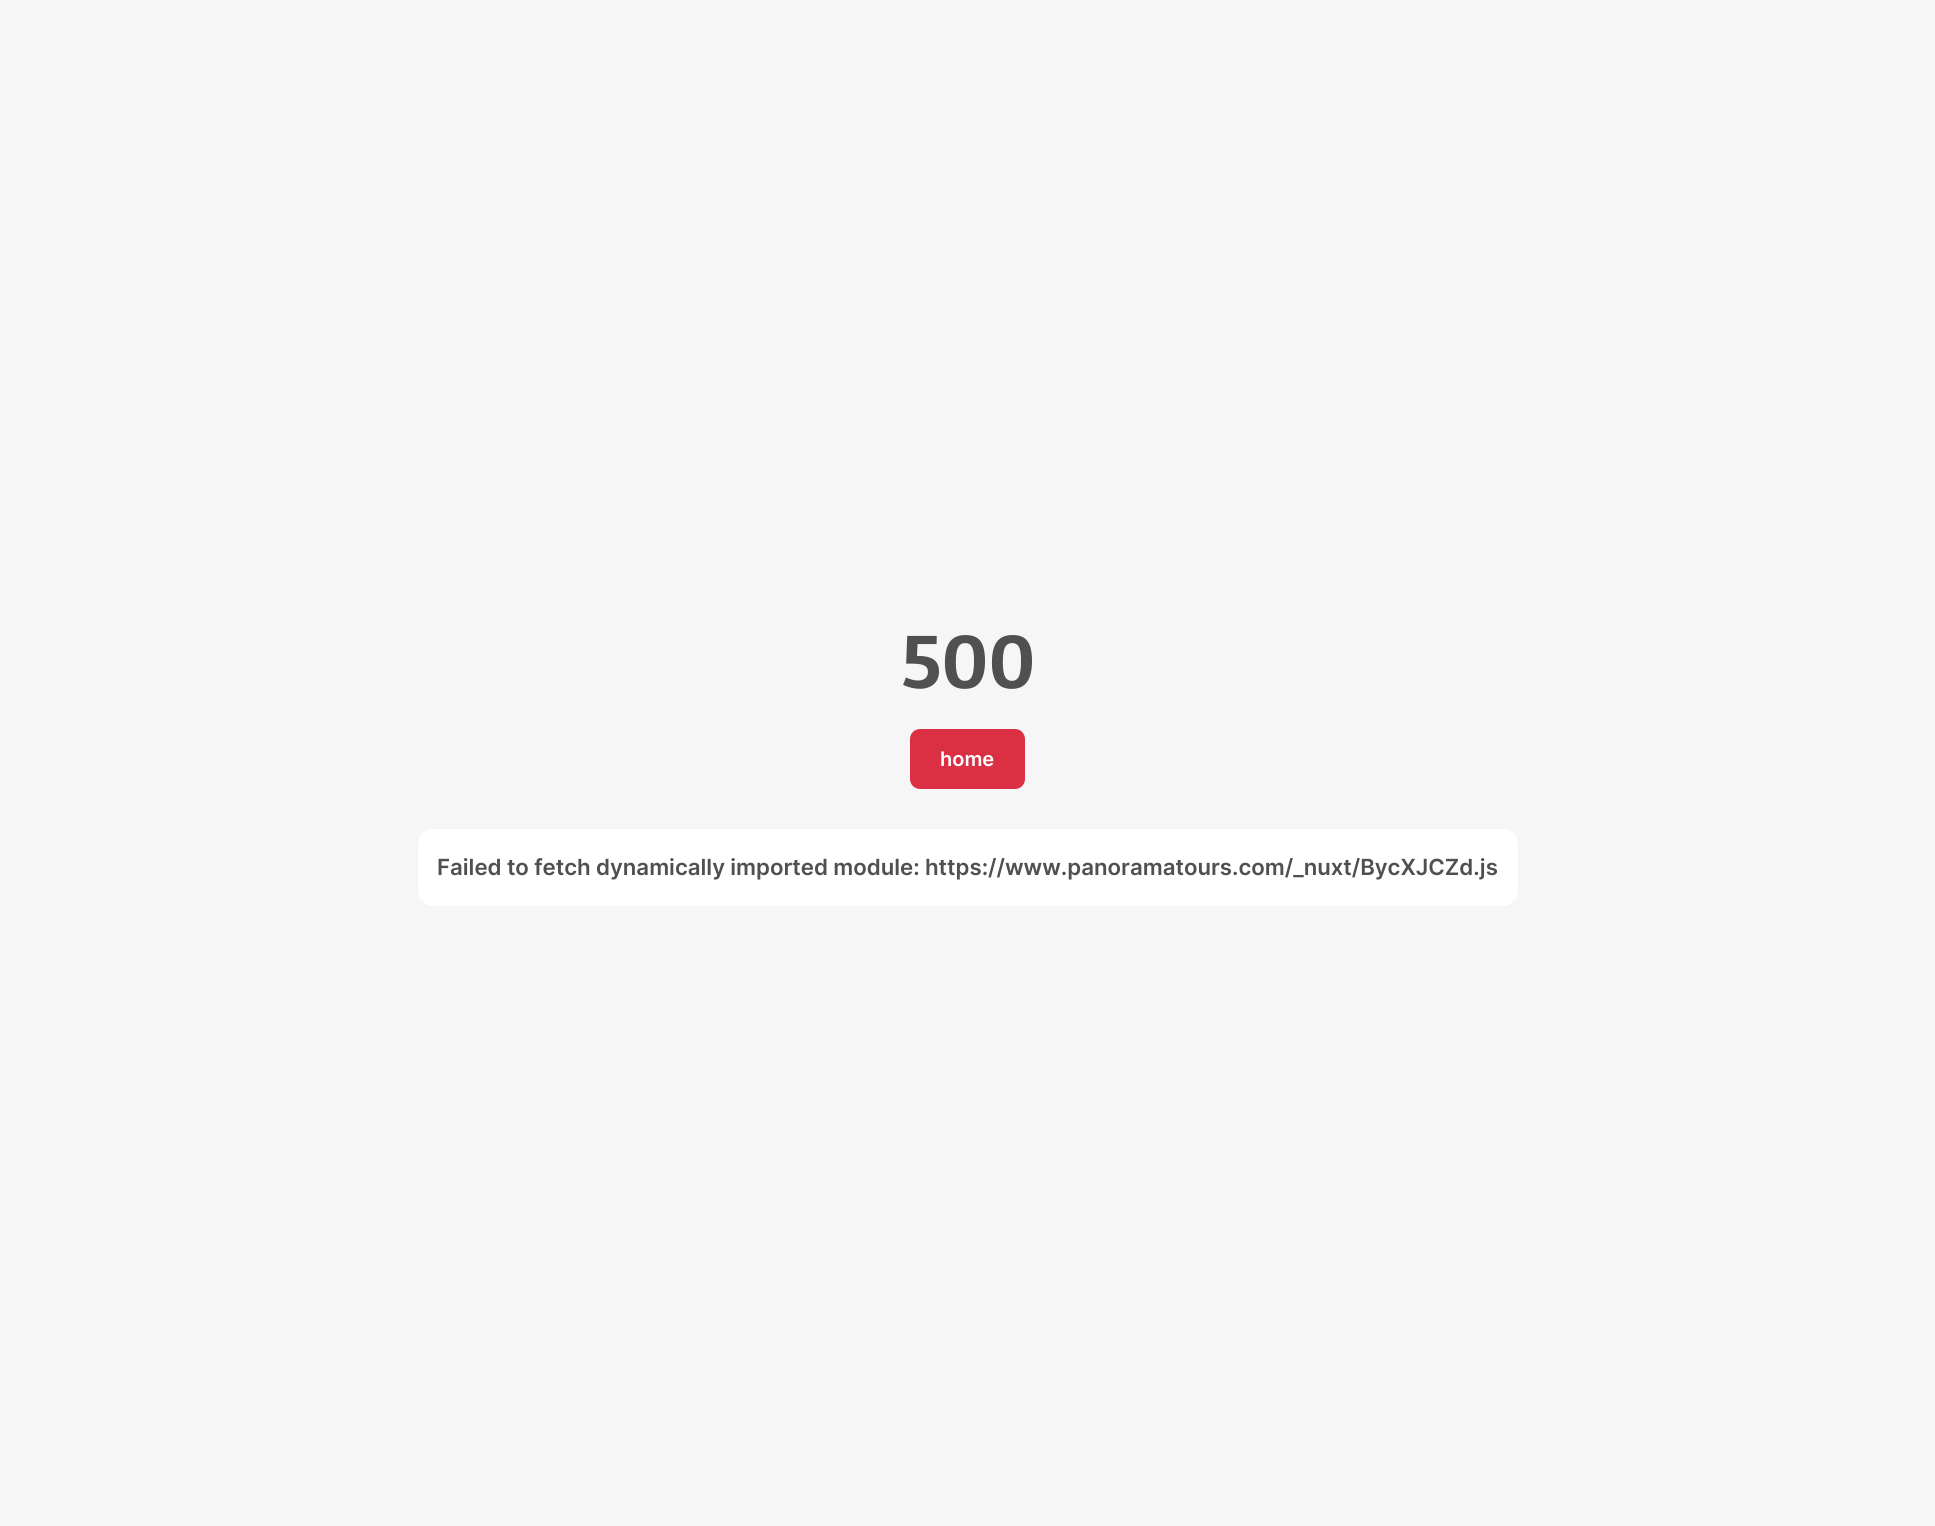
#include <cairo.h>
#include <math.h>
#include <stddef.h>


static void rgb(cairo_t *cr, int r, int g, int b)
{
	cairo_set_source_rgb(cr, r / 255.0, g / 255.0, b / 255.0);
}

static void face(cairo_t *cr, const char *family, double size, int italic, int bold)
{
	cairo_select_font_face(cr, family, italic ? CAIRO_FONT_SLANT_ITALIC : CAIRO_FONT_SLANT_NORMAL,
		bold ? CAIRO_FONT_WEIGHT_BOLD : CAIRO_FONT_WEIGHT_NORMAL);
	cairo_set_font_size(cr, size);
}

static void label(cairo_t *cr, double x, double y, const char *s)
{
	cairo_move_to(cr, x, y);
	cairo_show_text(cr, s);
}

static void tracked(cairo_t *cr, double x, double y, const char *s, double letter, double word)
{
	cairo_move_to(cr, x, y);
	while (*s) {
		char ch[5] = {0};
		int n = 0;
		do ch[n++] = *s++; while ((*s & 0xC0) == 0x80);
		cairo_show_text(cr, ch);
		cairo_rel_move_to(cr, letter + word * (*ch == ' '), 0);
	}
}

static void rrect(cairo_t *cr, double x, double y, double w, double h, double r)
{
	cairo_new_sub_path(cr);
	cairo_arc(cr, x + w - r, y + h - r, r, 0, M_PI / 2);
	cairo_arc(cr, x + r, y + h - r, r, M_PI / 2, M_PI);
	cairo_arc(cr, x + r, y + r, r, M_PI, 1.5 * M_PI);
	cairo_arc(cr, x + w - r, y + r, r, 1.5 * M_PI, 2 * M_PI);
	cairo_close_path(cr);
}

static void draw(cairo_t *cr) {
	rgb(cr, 246, 246, 246);
	cairo_paint(cr);
	face(cr, "Bitter Thin", 74, 0, 0);
	rgb(cr, 80, 80, 80);
	label(cr, 901, 688, "500");
	rgb(cr, 219, 48, 68);
	rrect(cr, 910, 729, 115, 60, 10);
	cairo_fill(cr);
	face(cr, "Inter SemiBold", 20, 0, 0);
	rgb(cr, 255, 255, 255);
	label(cr, 940, 766, "home");
	rrect(cr, 418, 829, 1100, 77, 15);
	cairo_fill(cr);
	face(cr, "Inter SemiBold", 22.25, 0, 0);
	rgb(cr, 80, 80, 80);
	tracked(cr, 437, 875, "Failed to fetch dynamically imported module: https://www.panoramatours.com/_nuxt/BycXJCZd.js", 0, -0.25);
}

int main(void) {
	cairo_surface_t *surface = cairo_image_surface_create(CAIRO_FORMAT_RGB24, 1935, 1526);
	cairo_t *cr = cairo_create(surface);
	cairo_font_options_t *options = cairo_font_options_create();
	cairo_font_options_set_hint_metrics(options, CAIRO_HINT_METRICS_OFF);
	cairo_font_options_set_hint_style(options, CAIRO_HINT_STYLE_NONE);
	cairo_set_font_options(cr, options);
	cairo_set_miter_limit(cr, 4);
	draw(cr);
	cairo_surface_write_to_png(surface, "render.png");
	cairo_font_options_destroy(options);
	cairo_destroy(cr);
	cairo_surface_destroy(surface);
	return 0;
}
